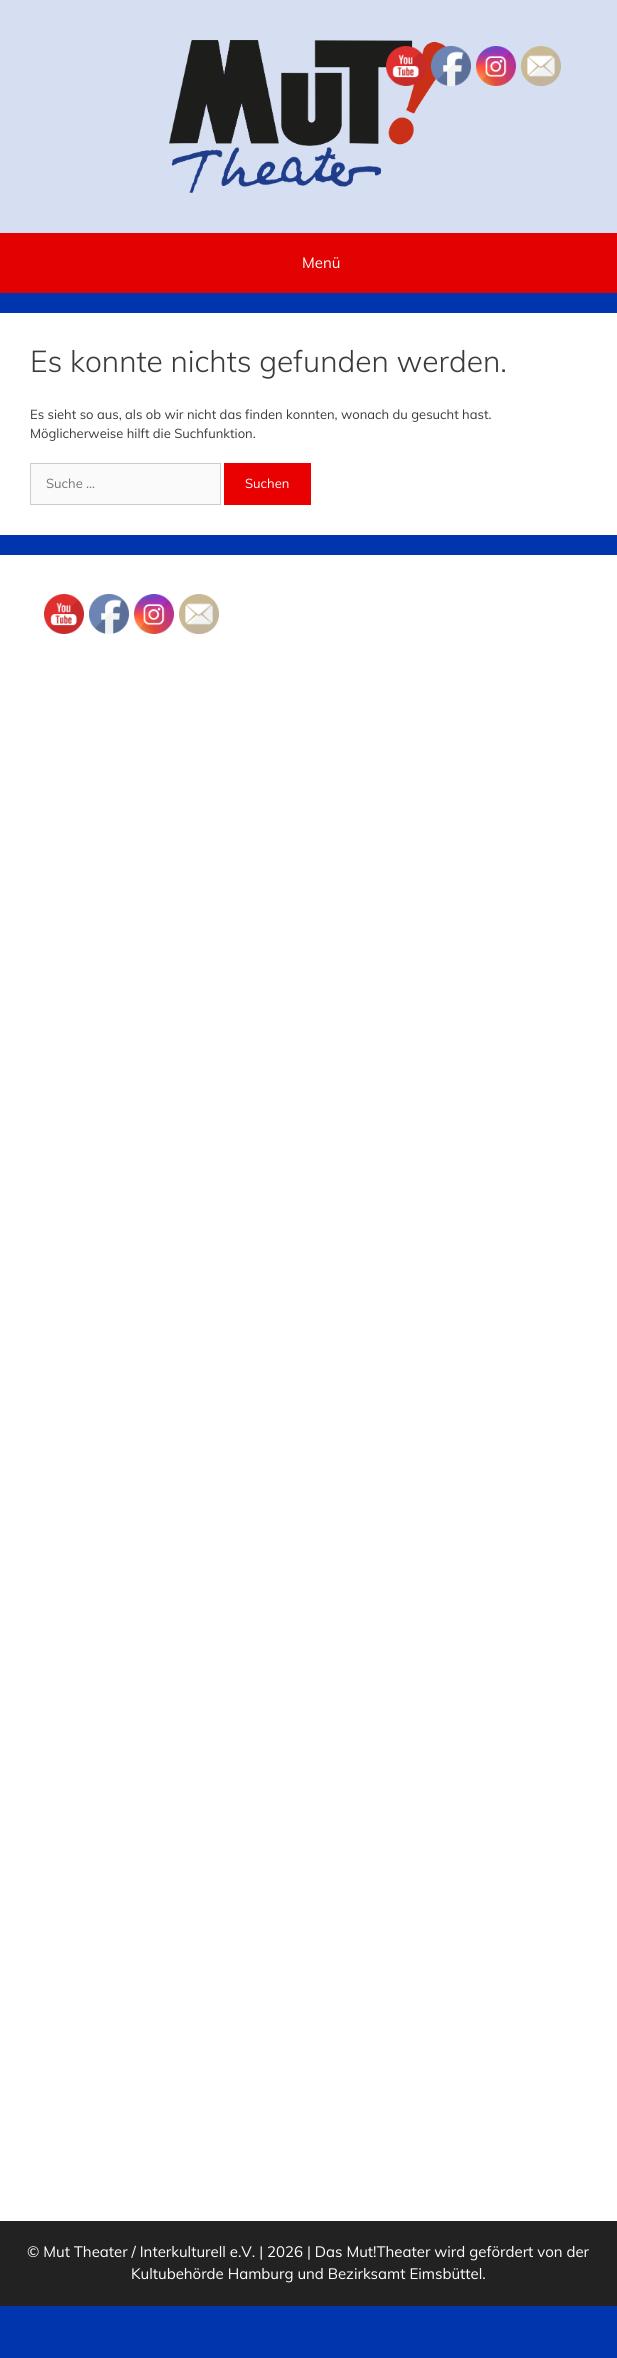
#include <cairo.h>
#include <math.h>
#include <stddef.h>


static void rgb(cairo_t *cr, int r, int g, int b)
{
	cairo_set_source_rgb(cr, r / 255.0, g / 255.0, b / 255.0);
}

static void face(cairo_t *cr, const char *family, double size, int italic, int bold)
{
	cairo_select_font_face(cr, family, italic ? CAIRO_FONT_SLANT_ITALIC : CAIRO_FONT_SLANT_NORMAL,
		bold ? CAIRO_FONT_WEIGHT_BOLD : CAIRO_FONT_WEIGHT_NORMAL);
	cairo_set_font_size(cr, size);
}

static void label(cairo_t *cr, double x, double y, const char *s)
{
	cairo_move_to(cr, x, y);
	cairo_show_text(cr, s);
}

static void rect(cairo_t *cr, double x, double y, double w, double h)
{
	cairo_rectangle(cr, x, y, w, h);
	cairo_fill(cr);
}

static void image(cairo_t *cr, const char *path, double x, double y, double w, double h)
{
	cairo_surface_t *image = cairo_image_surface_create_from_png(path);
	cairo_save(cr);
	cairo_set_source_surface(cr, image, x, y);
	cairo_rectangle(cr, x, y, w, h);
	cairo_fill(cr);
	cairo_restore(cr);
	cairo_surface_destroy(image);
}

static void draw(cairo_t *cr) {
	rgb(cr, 0, 53, 173);
	cairo_paint(cr);
	rgb(cr, 214, 223, 242);
	rect(cr, 0, 0, 617, 233);
	image(cr, "image0.png", 169, 40, 277, 153);
	image(cr, "image1.png", 386, 46, 40, 40);
	image(cr, "image2.png", 431, 46, 40, 40);
	image(cr, "image3.png", 476, 46, 40, 40);
	image(cr, "image4.png", 521, 46, 40, 40);
	rgb(cr, 227, 2, 2);
	rect(cr, 0, 233, 617, 60);
	face(cr, "Muli", 15, 0, 0);
	rgb(cr, 255, 255, 255);
	label(cr, 302, 268, "Menü");
	rect(cr, 0, 313, 617, 222);
	face(cr, "Muli Light", 30, 0, 0);
	rgb(cr, 58, 58, 58);
	label(cr, 30, 372, "Es konnte nichts gefunden werden.");
	face(cr, "Muli", 13, 0, 0);
	label(cr, 30, 419, "Es sieht so aus, als ob wir nicht das finden konnten, wonach du gesucht hast.");
	label(cr, 30, 438, "Möglicherweise hilft die Suchfunktion.");
	rgb(cr, 250, 250, 250);
	cairo_rectangle(cr, 30.5, 463.5, 190, 41);
	cairo_fill_preserve(cr);
	rgb(cr, 204, 204, 204);
	cairo_set_line_width(cr, 1);
	cairo_stroke(cr);
	rgb(cr, 117, 117, 117);
	label(cr, 46, 488, "Suche …");
	rgb(cr, 233, 1, 1);
	rect(cr, 224, 463, 87, 42);
	rgb(cr, 255, 255, 255);
	label(cr, 245, 488, "Suchen");
	rect(cr, 0, 555, 617, 1666);
	image(cr, "image5.png", 44, 594, 40, 40);
	image(cr, "image6.png", 89, 594, 40, 40);
	image(cr, "image7.png", 134, 594, 40, 40);
	image(cr, "image8.png", 179, 594, 40, 40);
	rgb(cr, 34, 34, 34);
	rect(cr, 0, 2221, 617, 85);
	face(cr, "Muli", 15, 0, 0);
	rgb(cr, 255, 255, 255);
	label(cr, 27, 2257, "© Mut Theater / Interkulturell e.V. | 2026 | Das Mut!Theater wird gefördert von der");
	label(cr, 131, 2279, "Kultubehörde Hamburg und Bezirksamt Eimsbüttel.");
}

int main(void) {
	cairo_surface_t *surface = cairo_image_surface_create(CAIRO_FORMAT_RGB24, 617, 2358);
	cairo_t *cr = cairo_create(surface);
	cairo_font_options_t *options = cairo_font_options_create();
	cairo_font_options_set_hint_metrics(options, CAIRO_HINT_METRICS_OFF);
	cairo_font_options_set_hint_style(options, CAIRO_HINT_STYLE_NONE);
	cairo_set_font_options(cr, options);
	cairo_set_miter_limit(cr, 4);
	draw(cr);
	cairo_surface_write_to_png(surface, "render.png");
	cairo_font_options_destroy(options);
	cairo_destroy(cr);
	cairo_surface_destroy(surface);
	return 0;
}
